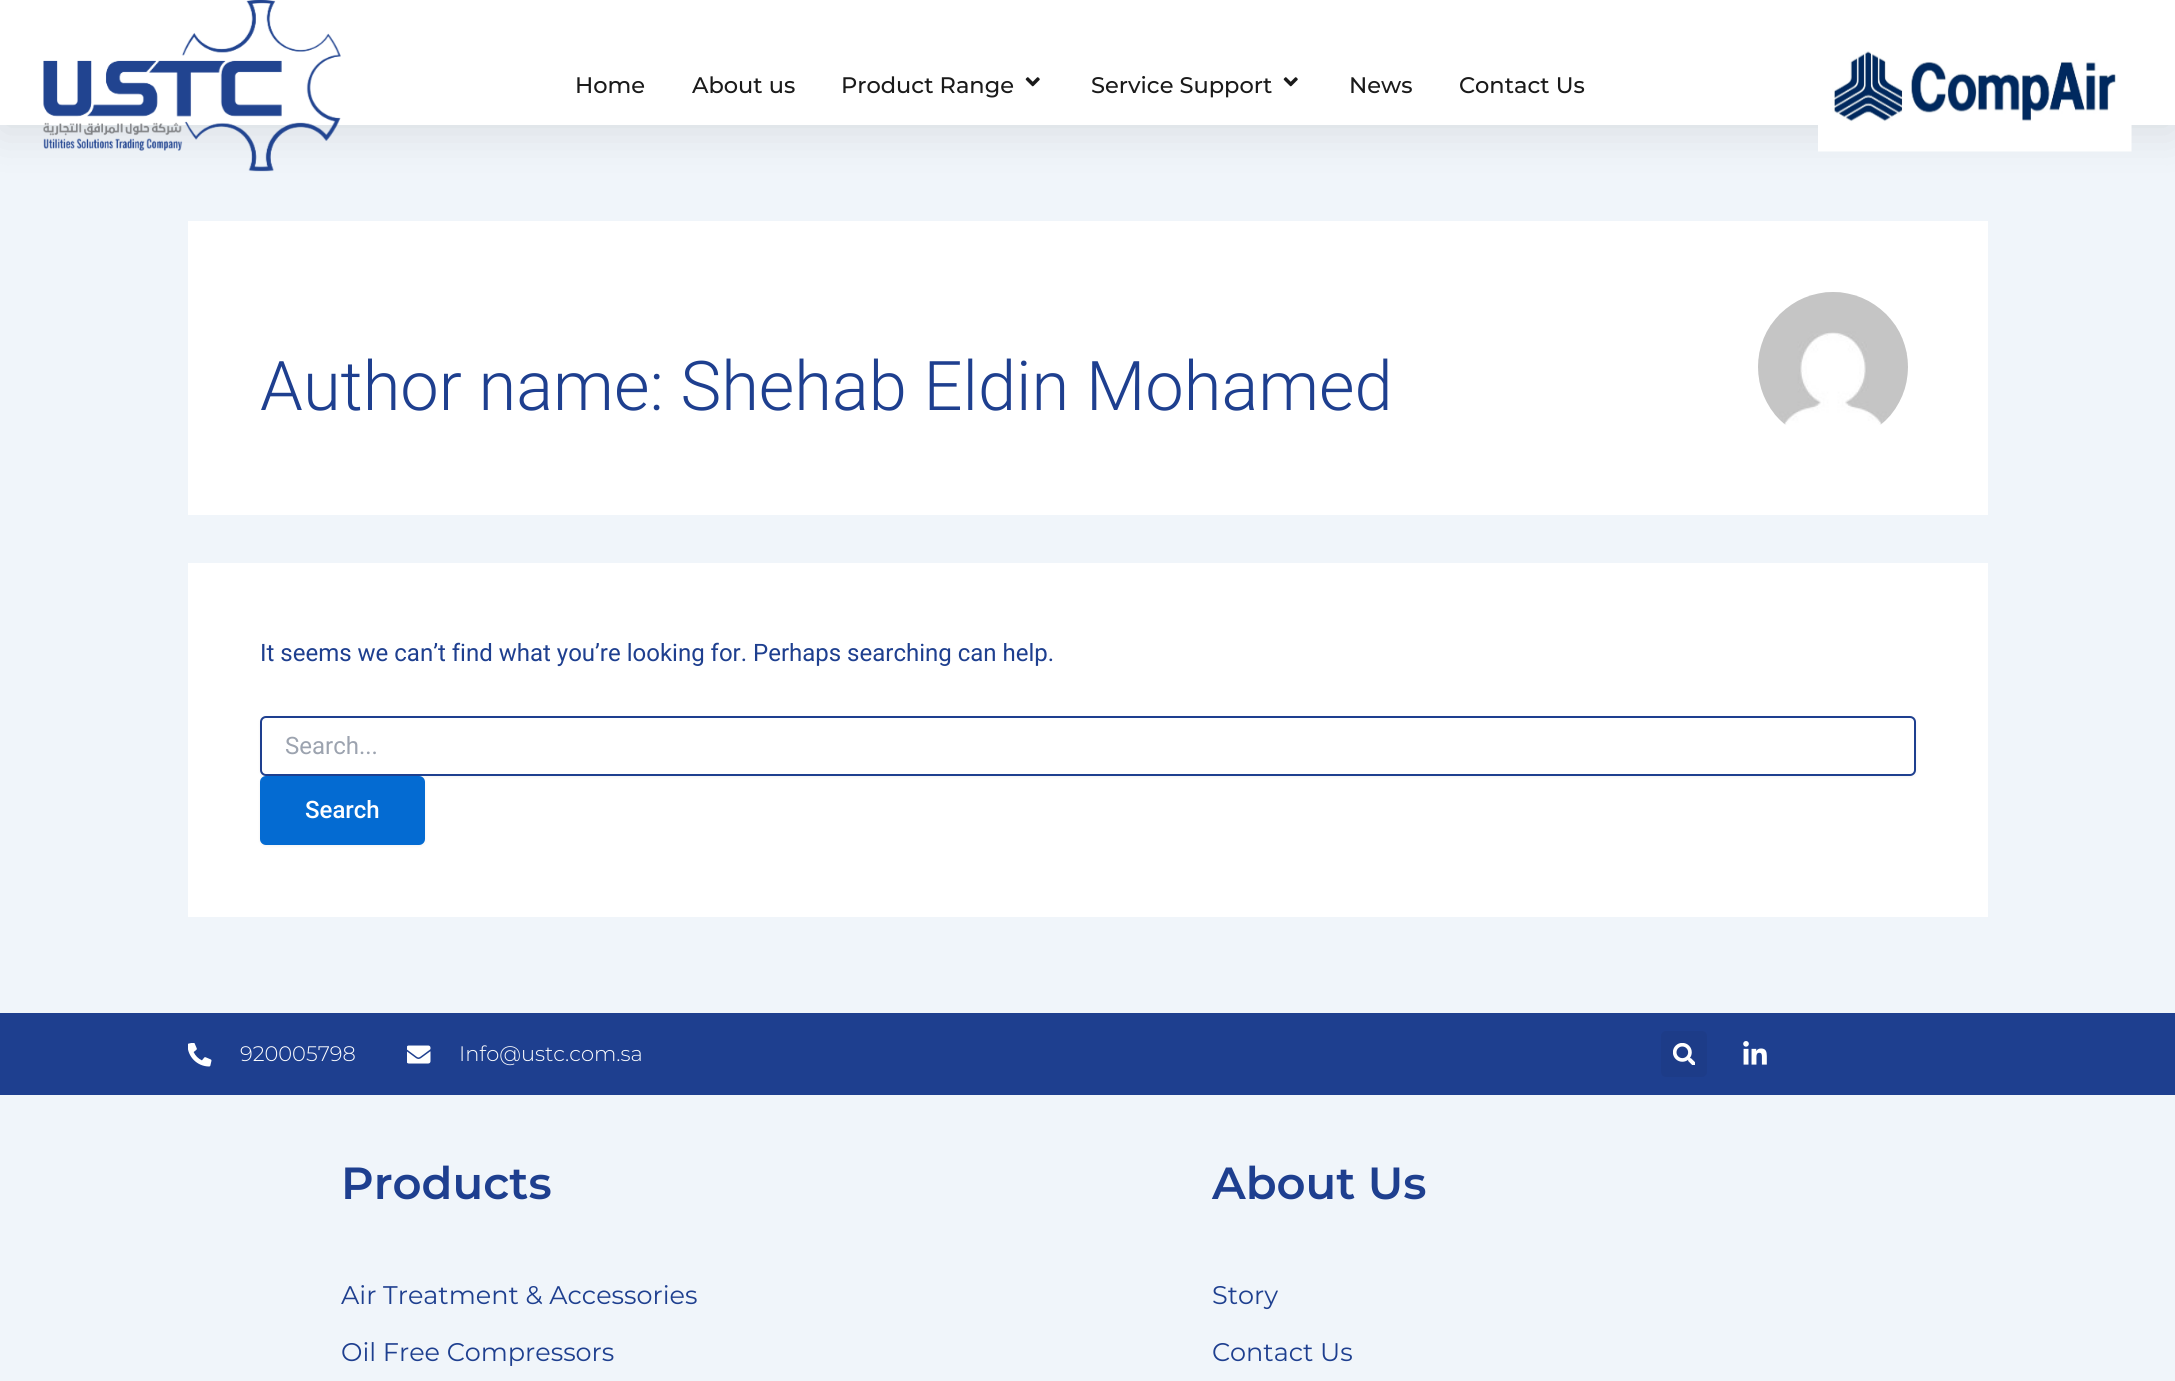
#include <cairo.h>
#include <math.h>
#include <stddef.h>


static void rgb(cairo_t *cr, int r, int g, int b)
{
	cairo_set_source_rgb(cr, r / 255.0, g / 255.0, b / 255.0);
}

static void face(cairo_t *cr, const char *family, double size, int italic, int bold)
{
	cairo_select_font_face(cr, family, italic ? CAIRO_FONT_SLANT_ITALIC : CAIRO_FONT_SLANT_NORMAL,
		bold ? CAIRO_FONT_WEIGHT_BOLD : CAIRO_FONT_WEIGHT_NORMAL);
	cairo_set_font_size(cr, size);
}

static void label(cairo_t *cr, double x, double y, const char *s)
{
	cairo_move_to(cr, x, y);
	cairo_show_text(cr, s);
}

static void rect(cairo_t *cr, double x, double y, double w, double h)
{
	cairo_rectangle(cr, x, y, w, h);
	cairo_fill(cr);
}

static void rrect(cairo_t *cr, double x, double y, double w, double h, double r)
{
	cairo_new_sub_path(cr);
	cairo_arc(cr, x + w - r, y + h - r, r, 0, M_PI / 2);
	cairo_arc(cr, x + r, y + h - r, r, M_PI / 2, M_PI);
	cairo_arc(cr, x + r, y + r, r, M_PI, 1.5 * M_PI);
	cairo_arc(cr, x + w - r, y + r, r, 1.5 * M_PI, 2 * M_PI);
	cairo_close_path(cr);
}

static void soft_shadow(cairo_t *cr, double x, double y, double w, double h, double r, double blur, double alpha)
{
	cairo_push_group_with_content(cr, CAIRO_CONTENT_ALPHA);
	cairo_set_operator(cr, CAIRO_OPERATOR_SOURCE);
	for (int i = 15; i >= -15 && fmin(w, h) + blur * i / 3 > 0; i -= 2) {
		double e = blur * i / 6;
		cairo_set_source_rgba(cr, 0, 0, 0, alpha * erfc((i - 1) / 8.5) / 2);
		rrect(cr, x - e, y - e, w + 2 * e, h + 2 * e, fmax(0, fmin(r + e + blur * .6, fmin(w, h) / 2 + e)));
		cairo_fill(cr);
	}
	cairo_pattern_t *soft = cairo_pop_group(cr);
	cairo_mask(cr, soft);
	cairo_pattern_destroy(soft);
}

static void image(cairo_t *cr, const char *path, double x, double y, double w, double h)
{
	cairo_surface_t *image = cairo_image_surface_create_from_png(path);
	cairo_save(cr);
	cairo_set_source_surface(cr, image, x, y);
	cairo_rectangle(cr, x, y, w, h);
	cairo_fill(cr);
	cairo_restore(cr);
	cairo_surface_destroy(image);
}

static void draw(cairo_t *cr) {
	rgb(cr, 240, 245, 250);
	cairo_paint(cr);
	rgb(cr, 0, 0, 0);
	soft_shadow(cr, 0, -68, 2175, 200, 0, 22.5, 0.1);
	rgb(cr, 255, 255, 255);
	rect(cr, 0, 0, 2175, 125);
	image(cr, "image0.png", 43, 0, 298, 172);
	face(cr, "Montserrat Medium", 22.5, 0, 0);
	rgb(cr, 26, 26, 26);
	label(cr, 575, 93, "Home");
	label(cr, 692, 93, "About us");
	label(cr, 841, 93, "Product Range");
	image(cr, "image1.png", 1025, 77, 15, 10);
	label(cr, 1091, 93, "Service Support");
	image(cr, "image1.png", 1283, 77, 15, 10);
	label(cr, 1349, 93, "News");
	label(cr, 1459, 93, "Contact Us");
	image(cr, "image2.png", 1818, 51, 314, 101);
	rgb(cr, 255, 255, 255);
	rect(cr, 188, 221, 1800, 294);
	face(cr, "Roboto Light", 68.6, 0, 0);
	rgb(cr, 30, 63, 143);
	label(cr, 260, 410, "Author name: Shehab Eldin Mohamed");
	image(cr, "image3.png", 1758, 292, 150, 133);
	rgb(cr, 255, 255, 255);
	rect(cr, 188, 563, 1800, 354);
	face(cr, "Roboto", 24, 0, 0);
	rgb(cr, 30, 63, 143);
	label(cr, 260, 661, "It seems we can’t find what you’re looking for. Perhaps searching can help.");
	rgb(cr, 0, 0, 0);
	soft_shadow(cr, 260, 717, 1656, 60, 6, 1.5, 0.05);
	rgb(cr, 255, 255, 255);
	rrect(cr, 261, 717, 1654, 58, 5);
	cairo_fill_preserve(cr);
	rgb(cr, 30, 63, 143);
	cairo_stroke(cr);
	rgb(cr, 156, 163, 175);
	label(cr, 285, 754, "Search...");
	rgb(cr, 0, 0, 0);
	soft_shadow(cr, 260, 777, 165, 69, 6, 1.5, 0.05);
	rgb(cr, 4, 107, 210);
	rrect(cr, 260, 776, 165, 69, 6);
	cairo_fill(cr);
	face(cr, "Roboto Medium", 24, 0, 0);
	rgb(cr, 255, 255, 255);
	label(cr, 305, 818, "Search");
	rgb(cr, 30, 63, 143);
	rect(cr, 0, 1013, 2175, 82);
	image(cr, "image4.png", 188, 1043, 24, 24);
	face(cr, "Montserrat Light", 21, 0, 0);
	rgb(cr, 255, 255, 255);
	label(cr, 240, 1061, "920005798");
	image(cr, "image5.png", 407, 1045, 24, 19);
	label(cr, 459, 1061, "Info@ustc.com.sa");
	rgb(cr, 29, 60, 136);
	rrect(cr, 1661, 1031, 46, 46, 5);
	cairo_fill(cr);
	image(cr, "image6.png", 1673, 1043, 22, 22);
	image(cr, "image7.png", 1743, 1041, 24, 24);
	face(cr, "Montserrat SemiBold", 45, 0, 0);
	rgb(cr, 30, 63, 143);
	label(cr, 341, 1199, "Products");
	face(cr, "Montserrat", 25.5, 0, 0);
	label(cr, 341, 1304, "Air Treatment & Accessories");
	label(cr, 341, 1361, "Oil Free Compressors");
	face(cr, "Montserrat SemiBold", 45, 0, 0);
	label(cr, 1212, 1199, "About Us");
	face(cr, "Montserrat", 25.5, 0, 0);
	label(cr, 1212, 1304, "Story");
	label(cr, 1212, 1361, "Contact Us");
}

int main(void) {
	cairo_surface_t *surface = cairo_image_surface_create(CAIRO_FORMAT_RGB24, 2175, 1381);
	cairo_t *cr = cairo_create(surface);
	cairo_font_options_t *options = cairo_font_options_create();
	cairo_font_options_set_hint_metrics(options, CAIRO_HINT_METRICS_OFF);
	cairo_font_options_set_hint_style(options, CAIRO_HINT_STYLE_NONE);
	cairo_set_font_options(cr, options);
	cairo_set_miter_limit(cr, 4);
	draw(cr);
	cairo_surface_write_to_png(surface, "render.png");
	cairo_font_options_destroy(options);
	cairo_destroy(cr);
	cairo_surface_destroy(surface);
	return 0;
}
